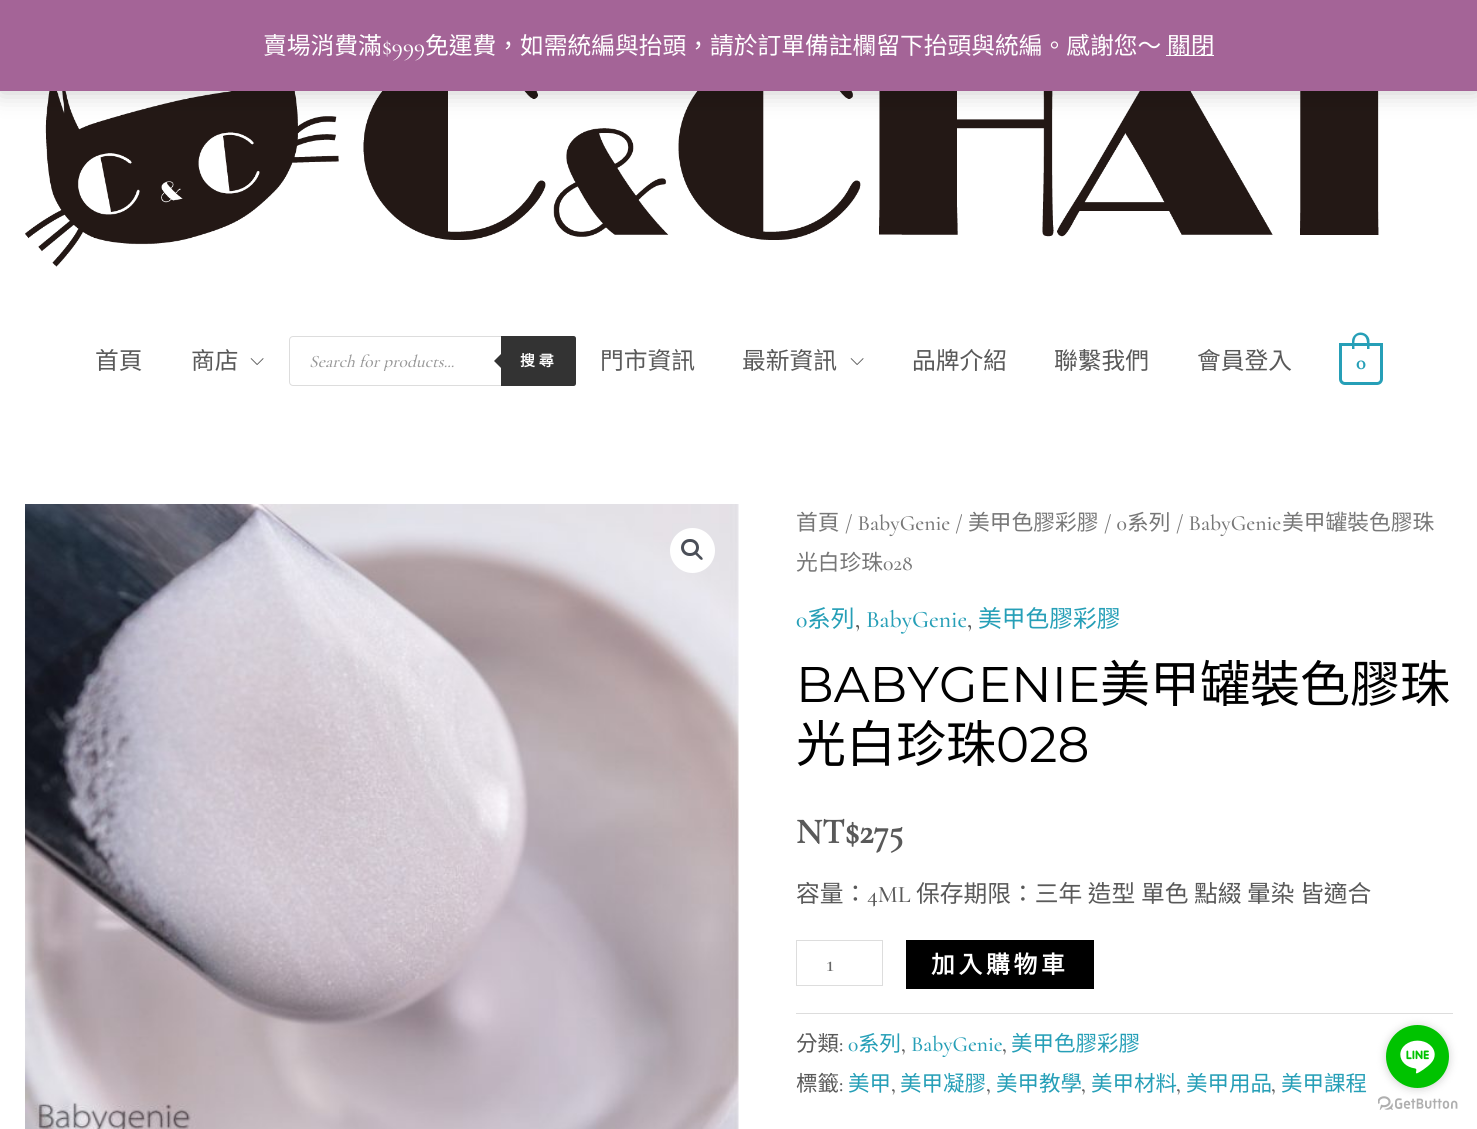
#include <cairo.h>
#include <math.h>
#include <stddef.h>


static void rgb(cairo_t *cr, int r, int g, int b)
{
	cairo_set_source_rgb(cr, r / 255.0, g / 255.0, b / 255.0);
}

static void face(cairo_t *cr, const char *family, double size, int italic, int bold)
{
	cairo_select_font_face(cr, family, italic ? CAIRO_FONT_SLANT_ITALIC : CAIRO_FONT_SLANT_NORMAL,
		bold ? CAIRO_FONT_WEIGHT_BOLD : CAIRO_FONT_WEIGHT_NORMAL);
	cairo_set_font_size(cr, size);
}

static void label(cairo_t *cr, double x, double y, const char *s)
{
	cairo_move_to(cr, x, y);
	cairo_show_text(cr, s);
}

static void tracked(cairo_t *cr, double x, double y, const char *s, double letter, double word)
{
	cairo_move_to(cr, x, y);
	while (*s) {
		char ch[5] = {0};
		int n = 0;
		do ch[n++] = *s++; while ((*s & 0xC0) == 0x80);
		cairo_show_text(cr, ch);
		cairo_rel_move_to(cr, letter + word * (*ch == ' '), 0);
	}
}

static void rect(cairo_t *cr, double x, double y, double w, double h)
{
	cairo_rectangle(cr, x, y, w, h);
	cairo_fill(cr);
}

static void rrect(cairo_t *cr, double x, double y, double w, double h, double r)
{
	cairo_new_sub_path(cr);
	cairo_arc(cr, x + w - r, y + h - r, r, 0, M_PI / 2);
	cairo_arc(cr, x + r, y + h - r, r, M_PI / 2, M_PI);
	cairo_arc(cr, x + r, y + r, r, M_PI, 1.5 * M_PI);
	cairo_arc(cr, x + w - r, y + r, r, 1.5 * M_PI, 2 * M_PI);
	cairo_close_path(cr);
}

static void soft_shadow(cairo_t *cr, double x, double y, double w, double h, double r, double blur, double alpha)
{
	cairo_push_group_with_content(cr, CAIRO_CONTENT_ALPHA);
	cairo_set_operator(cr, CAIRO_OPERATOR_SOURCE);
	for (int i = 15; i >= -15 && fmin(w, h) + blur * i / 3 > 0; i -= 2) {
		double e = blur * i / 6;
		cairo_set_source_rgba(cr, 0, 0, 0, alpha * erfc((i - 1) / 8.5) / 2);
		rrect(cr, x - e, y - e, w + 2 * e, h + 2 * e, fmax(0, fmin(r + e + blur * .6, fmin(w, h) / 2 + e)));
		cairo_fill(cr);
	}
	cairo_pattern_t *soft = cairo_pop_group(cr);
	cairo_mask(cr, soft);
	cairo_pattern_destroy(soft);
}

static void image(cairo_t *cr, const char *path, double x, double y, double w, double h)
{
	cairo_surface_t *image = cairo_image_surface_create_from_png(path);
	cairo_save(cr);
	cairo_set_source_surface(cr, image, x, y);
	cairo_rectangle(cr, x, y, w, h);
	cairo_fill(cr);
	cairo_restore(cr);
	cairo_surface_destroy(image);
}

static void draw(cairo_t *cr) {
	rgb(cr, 255, 255, 255);
	cairo_paint(cr);
	image(cr, "image0.png", 25, 91, 1354, 176);
	rgb(cr, 0, 0, 0);
	soft_shadow(cr, 0, 1, 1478, 92, 0, 12, 0.2);
	rgb(cr, 164, 100, 151);
	rect(cr, 0, 0, 1477, 91);
	face(cr, "Noto Sans CJK TC", 23.75, 0, 0);
	rgb(cr, 255, 255, 255);
	label(cr, 263, 54, "賣場消費滿");
	face(cr, "Cormorant Light", 23.75, 0, 0);
	label(cr, 382, 54, "$999");
	face(cr, "Noto Sans CJK TC", 23.75, 0, 0);
	label(cr, 425, 54, "免運費，如需統編與抬頭，請於訂單備註欄留下抬頭與統編。感謝您～");
	rect(cr, 1166, 55, 48, 1);
	label(cr, 1167, 54, "關閉");
	rgb(cr, 89, 89, 89);
	label(cr, 95, 369, "首頁");
	label(cr, 191, 369, "商店");
	image(cr, "image1.png", 250, 358, 14, 7);
	rrect(cr, 289.5, 336.5, 286, 49, 3.5);
	rgb(cr, 221, 221, 221);
	cairo_set_line_width(cr, 1);
	cairo_stroke(cr);
	cairo_save(cr);
	cairo_rectangle(cr, 309, 350, 247, 21);
	cairo_clip(cr);
	face(cr, "Cormorant Light", 17.5, 1, 0);
	rgb(cr, 153, 153, 153);
	label(cr, 309, 367, "Search for products...");
	cairo_restore(cr);
	rgb(cr, 51, 51, 51);
	cairo_new_path(cr);
	cairo_move_to(cr, 501, 336);
	cairo_line_to(cr, 573.5, 336);
	cairo_curve_to(cr, 575, 336, 576, 337, 576, 338.5);
	cairo_line_to(cr, 576, 383.5);
	cairo_curve_to(cr, 576, 385, 575, 386, 573.5, 386);
	cairo_line_to(cr, 501, 386);
	cairo_close_path(cr);
	cairo_fill(cr);
	cairo_new_path(cr);
	cairo_move_to(cr, 504, 351);
	cairo_line_to(cr, 504, 371);
	cairo_line_to(cr, 494, 361);
	cairo_close_path(cr);
	cairo_fill(cr);
	face(cr, "Noto Sans CJK TC", 15, 0, 1);
	rgb(cr, 255, 255, 255);
	tracked(cr, 520, 366, "搜尋", 3.75, 0);
	face(cr, "Noto Sans CJK TC", 23.75, 0, 0);
	rgb(cr, 89, 89, 89);
	label(cr, 600, 369, "門市資訊");
	label(cr, 742, 369, "最新資訊");
	image(cr, "image1.png", 850, 358, 14, 7);
	label(cr, 912, 369, "品牌介紹");
	label(cr, 1054, 369, "聯繫我們");
	label(cr, 1197, 369, "會員登入");
	cairo_new_path(cr);
	cairo_move_to(cr, 1340.5, 344.5);
	cairo_line_to(cr, 1381.5, 344.5);
	cairo_line_to(cr, 1381.5, 379);
	cairo_curve_to(cr, 1381.5, 381.5, 1379.5, 383.5, 1377, 383.5);
	cairo_line_to(cr, 1345, 383.5);
	cairo_curve_to(cr, 1342.5, 383.5, 1340.5, 381.5, 1340.5, 379);
	cairo_close_path(cr);
	rgb(cr, 38, 159, 183);
	cairo_set_line_width(cr, 3);
	cairo_stroke(cr);
	cairo_set_fill_rule(cr, CAIRO_FILL_RULE_EVEN_ODD);
	cairo_new_path(cr);
	cairo_move_to(cr, 1360.5, 332.5);
	cairo_curve_to(cr, 1365.5, 332.5, 1369.5, 336.5, 1369.5, 341);
	cairo_line_to(cr, 1369.5, 349);
	cairo_line_to(cr, 1352, 349);
	cairo_line_to(cr, 1352, 341);
	cairo_curve_to(cr, 1352, 336.5, 1356, 332.5, 1360.5, 332.5);
	cairo_close_path(cr);
	cairo_move_to(cr, 1360.5, 335);
	cairo_curve_to(cr, 1368, 335, 1367, 343.5, 1367, 349);
	cairo_line_to(cr, 1354.5, 349);
	cairo_curve_to(cr, 1354.5, 343.5, 1353, 335, 1360.5, 335);
	cairo_close_path(cr);
	cairo_fill(cr);
	face(cr, "Cormorant", 20, 0, 1);
	label(cr, 1356, 369, "0");
	image(cr, "image2.png", 25, 504, 714, 625);
	rgb(cr, 255, 255, 255);
	cairo_arc(cr, 692.5, 550.5, 22.5, 0, 2 * M_PI);
	cairo_fill(cr);
	rrect(cr, 682.5, 540.5, 15, 14, 7);
	rgb(cr, 75, 79, 88);
	cairo_stroke(cr);
	cairo_set_fill_rule(cr, CAIRO_FILL_RULE_WINDING);
	cairo_new_path(cr);
	cairo_move_to(cr, 695, 552.5);
	cairo_curve_to(cr, 696.5, 551, 699, 554.5, 699.5, 555);
	cairo_curve_to(cr, 700.5, 556, 703.5, 558, 702.5, 559.5);
	cairo_curve_to(cr, 701, 561, 698.5, 557.5, 698, 557);
	cairo_curve_to(cr, 697, 556, 694, 554, 695, 552.5);
	cairo_close_path(cr);
	cairo_fill(cr);
	face(cr, "Noto Sans CJK TC", 21.75, 0, 0);
	rgb(cr, 119, 119, 119);
	label(cr, 796, 530, "首頁");
	face(cr, "Cormorant Light", 21.75, 0, 0);
	label(cr, 845, 530, "/ BabyGenie /");
	face(cr, "Noto Sans CJK TC", 21.75, 0, 0);
	label(cr, 968, 530, "美甲色膠彩膠");
	face(cr, "Cormorant Light", 21.75, 0, 0);
	label(cr, 1104, 530, "/ 0");
	face(cr, "Noto Sans CJK TC", 21.75, 0, 0);
	label(cr, 1127, 530, "系列");
	face(cr, "Cormorant Light", 21.75, 0, 0);
	label(cr, 1176, 530, "/ BabyGenie");
	face(cr, "Noto Sans CJK TC", 21.75, 0, 0);
	label(cr, 1282, 530, "美甲罐裝色膠珠");
	label(cr, 796, 570, "光白珍珠");
	face(cr, "Cormorant Light", 21.75, 0, 0);
	label(cr, 883, 570, "028");
	face(cr, "Cormorant Light", 23.75, 0, 0);
	rgb(cr, 38, 159, 183);
	label(cr, 796, 627, "0");
	face(cr, "Noto Sans CJK TC", 23.75, 0, 0);
	label(cr, 807, 627, "系列");
	face(cr, "Cormorant Light", 23.75, 0, 0);
	rgb(cr, 89, 89, 89);
	label(cr, 855, 627, ",");
	rgb(cr, 38, 159, 183);
	label(cr, 866, 627, "BabyGenie");
	rgb(cr, 89, 89, 89);
	label(cr, 967, 627, ",");
	face(cr, "Noto Sans CJK TC", 23.75, 0, 0);
	rgb(cr, 38, 159, 183);
	label(cr, 978, 627, "美甲色膠彩膠");
	face(cr, "Montserrat", 50, 0, 0);
	rgb(cr, 0, 0, 0);
	label(cr, 796, 702, "BABYGENIE");
	face(cr, "Noto Sans CJK TC", 50, 0, 0);
	label(cr, 1100, 702, "美甲罐裝色膠珠");
	label(cr, 796, 762, "光白珍珠");
	face(cr, "Montserrat", 50, 0, 0);
	label(cr, 996, 762, "028");
	face(cr, "Cormorant", 35.5, 0, 1);
	rgb(cr, 89, 89, 89);
	label(cr, 796, 843, "NT$275");
	face(cr, "Noto Sans CJK TC", 23.75, 0, 0);
	label(cr, 796, 902, "容量：");
	face(cr, "Cormorant Light", 23.75, 0, 0);
	label(cr, 867, 902, "4ML");
	face(cr, "Noto Sans CJK TC", 23.75, 0, 0);
	tracked(cr, 916, 902, "保存期限：三年 造型 單色 點綴 暈染 皆適合", 0, 0.25);
	cairo_rectangle(cr, 796.5, 940.5, 86, 45);
	rgb(cr, 221, 221, 221);
	cairo_set_line_width(cr, 1);
	cairo_stroke(cr);
	face(cr, "Cormorant Light", 23.75, 0, 0);
	rgb(cr, 102, 102, 102);
	label(cr, 826, 971, "1");
	rgb(cr, 0, 0, 0);
	rect(cr, 906, 940, 188, 49);
	face(cr, "Noto Sans CJK TC", 23.75, 0, 1);
	rgb(cr, 255, 255, 255);
	tracked(cr, 931, 973, "加入購物車", 3.75, 0);
	rgb(cr, 221, 221, 221);
	rect(cr, 796, 1013, 657, 1);
	face(cr, "Noto Sans CJK TC", 21.5, 0, 0);
	rgb(cr, 89, 89, 89);
	label(cr, 796, 1051, "分類");
	face(cr, "Cormorant Light", 21.5, 0, 0);
	label(cr, 839, 1051, ":");
	rgb(cr, 38, 159, 183);
	label(cr, 848, 1051, "0");
	face(cr, "Noto Sans CJK TC", 21.5, 0, 0);
	label(cr, 858, 1051, "系列");
	face(cr, "Cormorant Light", 21.5, 0, 0);
	rgb(cr, 89, 89, 89);
	label(cr, 901, 1051, ",");
	rgb(cr, 38, 159, 183);
	label(cr, 911, 1051, "BabyGenie");
	rgb(cr, 89, 89, 89);
	label(cr, 1002, 1051, ",");
	face(cr, "Noto Sans CJK TC", 21.5, 0, 0);
	rgb(cr, 38, 159, 183);
	label(cr, 1011, 1051, "美甲色膠彩膠");
	rgb(cr, 89, 89, 89);
	label(cr, 796, 1091, "標籤");
	face(cr, "Cormorant Light", 21.5, 0, 0);
	label(cr, 839, 1091, ":");
	face(cr, "Noto Sans CJK TC", 21.5, 0, 0);
	rgb(cr, 38, 159, 183);
	label(cr, 848, 1091, "美甲");
	face(cr, "Cormorant Light", 21.5, 0, 0);
	rgb(cr, 89, 89, 89);
	label(cr, 891, 1091, ",");
	face(cr, "Noto Sans CJK TC", 21.5, 0, 0);
	rgb(cr, 38, 159, 183);
	label(cr, 900, 1091, "美甲凝膠");
	face(cr, "Cormorant Light", 21.5, 0, 0);
	rgb(cr, 89, 89, 89);
	label(cr, 986, 1091, ",");
	face(cr, "Noto Sans CJK TC", 21.5, 0, 0);
	rgb(cr, 38, 159, 183);
	label(cr, 996, 1091, "美甲教學");
	face(cr, "Cormorant Light", 21.5, 0, 0);
	rgb(cr, 89, 89, 89);
	label(cr, 1081, 1091, ",");
	face(cr, "Noto Sans CJK TC", 21.5, 0, 0);
	rgb(cr, 38, 159, 183);
	label(cr, 1091, 1091, "美甲材料");
	face(cr, "Cormorant Light", 21.5, 0, 0);
	rgb(cr, 89, 89, 89);
	label(cr, 1176, 1091, ",");
	face(cr, "Noto Sans CJK TC", 21.5, 0, 0);
	rgb(cr, 38, 159, 183);
	label(cr, 1186, 1091, "美甲用品");
	face(cr, "Cormorant Light", 21.5, 0, 0);
	rgb(cr, 89, 89, 89);
	label(cr, 1271, 1091, ",");
	face(cr, "Noto Sans CJK TC", 21.5, 0, 0);
	rgb(cr, 38, 159, 183);
	label(cr, 1281, 1091, "美甲課程");
	image(cr, "image4.png", 1378, 1096, 80, 14);
	rgb(cr, 136, 136, 136);
	soft_shadow(cr, 1386, 1026, 63, 63, 31.5, 4.5, 0.4);
	rgb(cr, 0, 195, 0);
	cairo_arc(cr, 1417.5, 1056.5, 31.5, 0, 2 * M_PI);
	cairo_fill(cr);
	image(cr, "image3.png", 1400, 1040, 35, 34);
}

int main(void) {
	cairo_surface_t *surface = cairo_image_surface_create(CAIRO_FORMAT_RGB24, 1477, 1129);
	cairo_t *cr = cairo_create(surface);
	cairo_font_options_t *options = cairo_font_options_create();
	cairo_font_options_set_hint_metrics(options, CAIRO_HINT_METRICS_OFF);
	cairo_font_options_set_hint_style(options, CAIRO_HINT_STYLE_NONE);
	cairo_set_font_options(cr, options);
	cairo_set_miter_limit(cr, 4);
	draw(cr);
	cairo_surface_write_to_png(surface, "render.png");
	cairo_font_options_destroy(options);
	cairo_destroy(cr);
	cairo_surface_destroy(surface);
	return 0;
}
